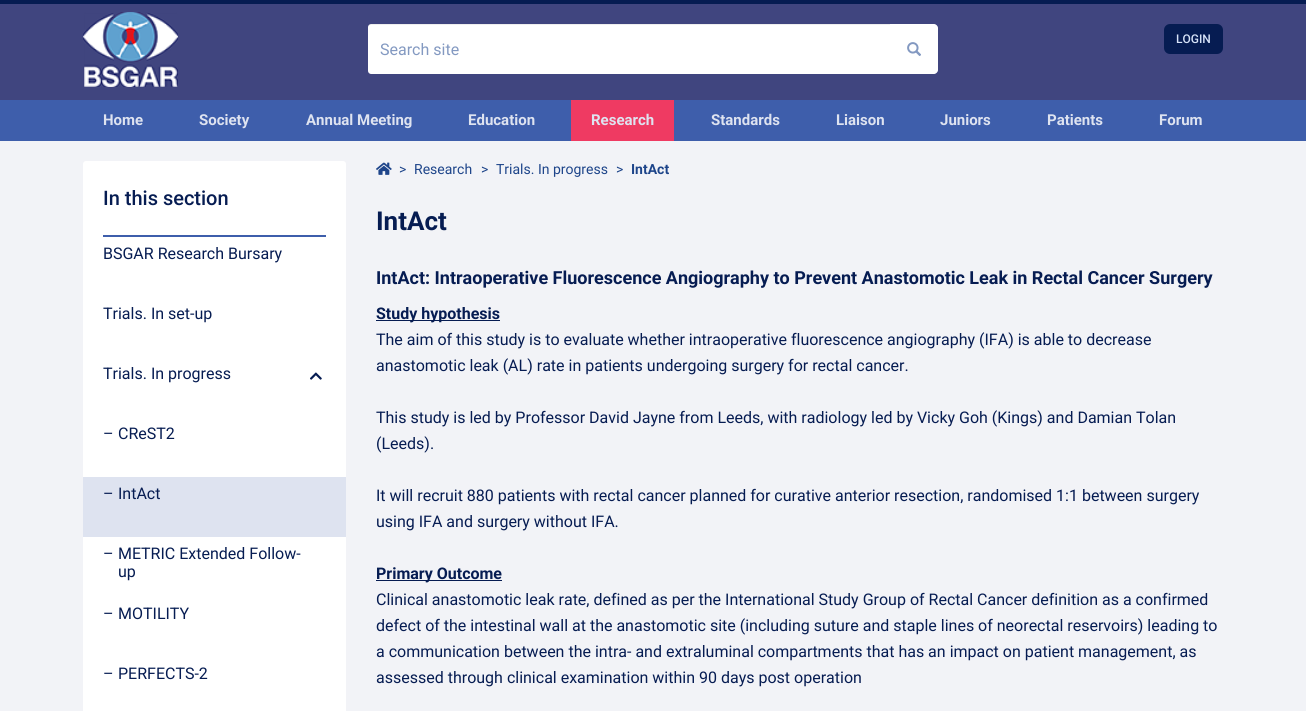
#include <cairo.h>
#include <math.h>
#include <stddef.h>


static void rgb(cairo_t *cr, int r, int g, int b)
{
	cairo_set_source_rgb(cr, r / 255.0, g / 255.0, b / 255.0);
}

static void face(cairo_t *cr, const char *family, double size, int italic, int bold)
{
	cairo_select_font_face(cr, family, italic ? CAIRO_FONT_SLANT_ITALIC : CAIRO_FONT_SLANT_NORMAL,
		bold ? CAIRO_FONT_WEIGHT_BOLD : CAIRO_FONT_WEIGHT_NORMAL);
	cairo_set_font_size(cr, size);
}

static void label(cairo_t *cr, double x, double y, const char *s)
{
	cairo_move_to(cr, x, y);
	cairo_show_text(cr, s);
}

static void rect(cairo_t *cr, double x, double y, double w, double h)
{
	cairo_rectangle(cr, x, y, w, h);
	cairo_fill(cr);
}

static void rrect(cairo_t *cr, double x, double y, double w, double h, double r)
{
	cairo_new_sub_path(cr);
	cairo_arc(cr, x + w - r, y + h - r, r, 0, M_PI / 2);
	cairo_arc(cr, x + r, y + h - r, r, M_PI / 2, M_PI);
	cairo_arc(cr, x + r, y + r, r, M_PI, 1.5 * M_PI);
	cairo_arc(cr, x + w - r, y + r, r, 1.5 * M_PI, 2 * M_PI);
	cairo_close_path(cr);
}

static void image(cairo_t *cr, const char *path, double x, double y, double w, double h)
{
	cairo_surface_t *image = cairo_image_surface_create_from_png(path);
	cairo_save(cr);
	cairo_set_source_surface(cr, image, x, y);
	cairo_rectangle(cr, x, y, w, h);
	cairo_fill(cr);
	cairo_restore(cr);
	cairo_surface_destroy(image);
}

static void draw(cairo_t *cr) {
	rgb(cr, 64, 69, 127);
	cairo_paint(cr);
	rgb(cr, 6, 28, 82);
	rect(cr, 0, 0, 1306, 4);
	image(cr, "image0.png", 83, 12, 95, 75);
	rrect(cr, 1164, 24, 59, 30, 6);
	cairo_fill(cr);
	face(cr, "Roboto Medium", 12, 0, 0);
	rgb(cr, 215, 227, 248);
	label(cr, 1176, 43, "LOGIN");
	rgb(cr, 255, 255, 255);
	cairo_new_path(cr);
	cairo_move_to(cr, 371, 24);
	cairo_line_to(cr, 890, 24);
	cairo_line_to(cr, 890, 74);
	cairo_line_to(cr, 371, 74);
	cairo_curve_to(cr, 369.5, 74, 368, 72.5, 368, 71);
	cairo_line_to(cr, 368, 27);
	cairo_curve_to(cr, 368, 25.5, 369.5, 24, 371, 24);
	cairo_close_path(cr);
	cairo_fill(cr);
	cairo_set_source_rgba(cr, 0, 0, 0, 0.07);
	cairo_new_path(cr);
	cairo_move_to(cr, 371, 25);
	cairo_line_to(cr, 890, 25);
	cairo_line_to(cr, 890, 24);
	cairo_line_to(cr, 371, 24);
	cairo_curve_to(cr, 369, 24, 368, 26, 368, 28);
	cairo_curve_to(cr, 368, 26, 369, 25, 371, 25);
	cairo_close_path(cr);
	cairo_fill(cr);
	face(cr, "Roboto", 16, 0, 0);
	rgb(cr, 131, 153, 193);
	label(cr, 380, 55, "Search site");
	rgb(cr, 255, 255, 255);
	cairo_new_path(cr);
	cairo_move_to(cr, 890, 24);
	cairo_line_to(cr, 934, 24);
	cairo_curve_to(cr, 936, 24, 938, 26, 938, 28);
	cairo_line_to(cr, 938, 70);
	cairo_curve_to(cr, 938, 72, 936, 74, 934, 74);
	cairo_line_to(cr, 890, 74);
	cairo_close_path(cr);
	cairo_fill(cr);
	image(cr, "image1.png", 907, 42, 14, 14);
	rgb(cr, 62, 94, 171);
	rect(cr, 0, 100, 1306, 41);
	rgb(cr, 242, 243, 247);
	rect(cr, 0, 141, 1306, 570);
	face(cr, "Roboto", 15, 0, 1);
	rgb(cr, 222, 227, 240);
	label(cr, 103, 125, "Home");
	label(cr, 199, 125, "Society");
	label(cr, 306, 125, "Annual Meeting");
	label(cr, 468, 125, "Education");
	rgb(cr, 239, 58, 98);
	rect(cr, 571, 100, 103, 41);
	rgb(cr, 222, 227, 240);
	label(cr, 591, 125, "Research");
	label(cr, 711, 125, "Standards");
	label(cr, 836, 125, "Liaison");
	label(cr, 940, 125, "Juniors");
	label(cr, 1047, 125, "Patients");
	label(cr, 1159, 125, "Forum");
	rgb(cr, 255, 255, 255);
	rrect(cr, 83, 161, 263, 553, 3);
	cairo_fill(cr);
	face(cr, "Roboto Medium", 20, 0, 0);
	rgb(cr, 6, 28, 82);
	label(cr, 103, 205, "In this section");
	rgb(cr, 62, 94, 171);
	rect(cr, 103, 235, 223, 2);
	face(cr, "Roboto", 16, 0, 0);
	rgb(cr, 6, 28, 82);
	label(cr, 103, 259, "BSGAR Research Bursary");
	label(cr, 103, 319, "Trials. In set-up");
	label(cr, 103, 379, "Trials. In progress");
	image(cr, "image2.png", 310, 372, 12, 8);
	label(cr, 103, 439, "–");
	label(cr, 118, 439, "CReST2");
	rgb(cr, 222, 227, 240);
	rect(cr, 83, 477, 263, 60);
	rgb(cr, 6, 28, 82);
	label(cr, 103, 499, "–");
	label(cr, 118, 499, "IntAct");
	label(cr, 103, 559, "–");
	label(cr, 118, 559, "METRIC Extended Follow-");
	label(cr, 118, 577, "up");
	label(cr, 103, 619, "–");
	label(cr, 118, 619, "MOTILITY");
	label(cr, 103, 679, "–");
	label(cr, 118, 679, "PERFECTS-2");
	image(cr, "image3.png", 376, 162, 16, 13);
	face(cr, "Roboto", 14, 0, 0);
	rgb(cr, 30, 69, 138);
	label(cr, 399, 174, ">");
	label(cr, 414, 174, "Research");
	label(cr, 481, 174, ">");
	label(cr, 496, 174, "Trials. In progress");
	label(cr, 616, 174, ">");
	face(cr, "Roboto", 14, 0, 1);
	label(cr, 631, 174, "IntAct");
	face(cr, "Roboto", 26, 0, 1);
	rgb(cr, 6, 28, 82);
	label(cr, 376, 230, "IntAct");
	face(cr, "Roboto", 18, 0, 1);
	label(cr, 376, 284, "IntAct: Intraoperative Fluorescence Angiography to Prevent Anastomotic Leak in Rectal Cancer Surgery");
	rect(cr, 376, 320, 124, 1);
	face(cr, "Roboto", 16, 0, 1);
	label(cr, 376, 319, "Study hypothesis");
	face(cr, "Roboto", 16, 0, 0);
	label(cr, 376, 345, "The aim of this study is to evaluate whether intraoperative fluorescence angiography (IFA) is able to decrease");
	label(cr, 376, 371, "anastomotic leak (AL) rate in patients undergoing surgery for rectal cancer.");
	label(cr, 376, 423, "This study is led by Professor David Jayne from Leeds, with radiology led by Vicky Goh (Kings) and Damian Tolan");
	label(cr, 376, 449, "(Leeds).");
	label(cr, 376, 501, "It will recruit 880 patients with rectal cancer planned for curative anterior resection, randomised 1:1 between surgery");
	label(cr, 376, 527, "using IFA and surgery without IFA.");
	rect(cr, 376, 580, 126, 1);
	face(cr, "Roboto", 16, 0, 1);
	label(cr, 376, 579, "Primary Outcome");
	face(cr, "Roboto", 16, 0, 0);
	label(cr, 376, 605, "Clinical anastomotic leak rate, defined as per the International Study Group of Rectal Cancer definition as a confirmed");
	label(cr, 376, 631, "defect of the intestinal wall at the anastomotic site (including suture and staple lines of neorectal reservoirs) leading to");
	label(cr, 376, 657, "a communication between the intra- and extraluminal compartments that has an impact on patient management, as");
	label(cr, 376, 683, "assessed through clinical examination within 90 days post operation");
}

int main(void) {
	cairo_surface_t *surface = cairo_image_surface_create(CAIRO_FORMAT_RGB24, 1306, 711);
	cairo_t *cr = cairo_create(surface);
	cairo_font_options_t *options = cairo_font_options_create();
	cairo_font_options_set_hint_metrics(options, CAIRO_HINT_METRICS_OFF);
	cairo_font_options_set_hint_style(options, CAIRO_HINT_STYLE_NONE);
	cairo_set_font_options(cr, options);
	cairo_set_miter_limit(cr, 4);
	draw(cr);
	cairo_surface_write_to_png(surface, "render.png");
	cairo_font_options_destroy(options);
	cairo_destroy(cr);
	cairo_surface_destroy(surface);
	return 0;
}
